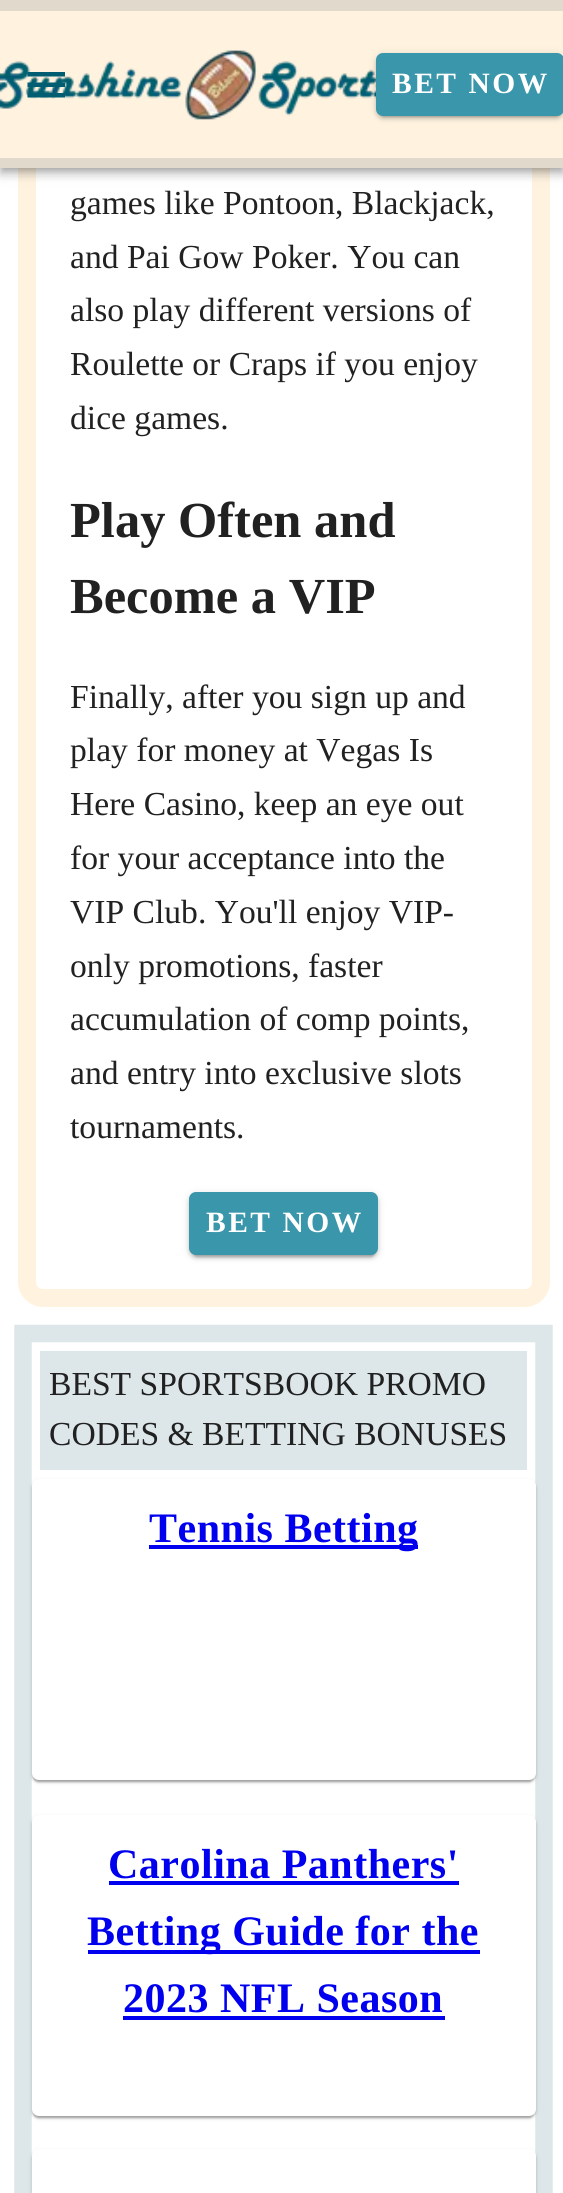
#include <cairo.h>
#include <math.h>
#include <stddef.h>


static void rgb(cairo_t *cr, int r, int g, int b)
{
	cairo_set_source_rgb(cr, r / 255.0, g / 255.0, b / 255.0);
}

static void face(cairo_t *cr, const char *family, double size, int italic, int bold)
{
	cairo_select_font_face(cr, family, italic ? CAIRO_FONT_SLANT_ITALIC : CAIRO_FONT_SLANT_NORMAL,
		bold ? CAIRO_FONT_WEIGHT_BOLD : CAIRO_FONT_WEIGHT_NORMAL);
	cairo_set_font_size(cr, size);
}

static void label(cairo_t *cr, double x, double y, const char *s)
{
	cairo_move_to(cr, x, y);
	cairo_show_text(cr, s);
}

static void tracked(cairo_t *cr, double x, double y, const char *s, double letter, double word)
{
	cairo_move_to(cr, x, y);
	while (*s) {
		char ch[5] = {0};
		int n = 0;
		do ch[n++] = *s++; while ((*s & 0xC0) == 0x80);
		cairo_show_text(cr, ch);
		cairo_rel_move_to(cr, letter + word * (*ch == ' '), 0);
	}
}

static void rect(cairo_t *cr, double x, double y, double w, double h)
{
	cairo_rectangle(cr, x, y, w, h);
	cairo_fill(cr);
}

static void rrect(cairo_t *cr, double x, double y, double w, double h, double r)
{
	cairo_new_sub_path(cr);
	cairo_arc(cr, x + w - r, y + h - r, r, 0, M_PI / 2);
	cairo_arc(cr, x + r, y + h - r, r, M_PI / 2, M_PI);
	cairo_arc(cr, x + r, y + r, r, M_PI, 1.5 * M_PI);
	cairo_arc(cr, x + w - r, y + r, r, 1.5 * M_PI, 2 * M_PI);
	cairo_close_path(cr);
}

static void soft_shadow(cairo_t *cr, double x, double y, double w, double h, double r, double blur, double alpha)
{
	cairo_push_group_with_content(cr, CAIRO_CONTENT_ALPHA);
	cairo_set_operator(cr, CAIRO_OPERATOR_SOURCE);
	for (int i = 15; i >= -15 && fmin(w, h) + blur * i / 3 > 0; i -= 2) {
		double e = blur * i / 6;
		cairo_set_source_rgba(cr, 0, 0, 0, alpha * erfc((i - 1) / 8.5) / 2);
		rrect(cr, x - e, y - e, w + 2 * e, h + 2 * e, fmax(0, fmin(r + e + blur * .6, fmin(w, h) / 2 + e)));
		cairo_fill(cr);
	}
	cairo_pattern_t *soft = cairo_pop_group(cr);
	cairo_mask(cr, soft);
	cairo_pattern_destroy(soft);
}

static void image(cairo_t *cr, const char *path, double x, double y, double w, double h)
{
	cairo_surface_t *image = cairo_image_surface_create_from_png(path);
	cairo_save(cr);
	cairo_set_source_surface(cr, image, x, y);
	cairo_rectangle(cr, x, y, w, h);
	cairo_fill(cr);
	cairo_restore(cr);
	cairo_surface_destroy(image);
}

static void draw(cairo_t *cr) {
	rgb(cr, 255, 255, 255);
	cairo_paint(cr);
	rrect(cr, 27, -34, 514, 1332, 16);
	rgb(cr, 255, 243, 224);
	cairo_set_line_width(cr, 18);
	cairo_stroke(cr);
	rgb(cr, 0, 0, 0);
	soft_shadow(cr, 0, 2, 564, 168, 0, 9, 0.12);
	soft_shadow(cr, 0, 7, 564, 168, 0, 4.5, 0.14);
	soft_shadow(cr, 2, 5, 560, 165, 0, 3.5, 0.2);
	rgb(cr, 255, 243, 224);
	rect(cr, 0, 11, 563, 147);
	rgb(cr, 225, 217, 203);
	rect(cr, 0, 0, 563, 11);
	rect(cr, 0, 158, 563, 10);
	image(cr, "image0.png", 0, 50, 376, 70);
	rgb(cr, 1, 94, 114);
	cairo_new_path(cr);
	cairo_move_to(cr, 27.5, 72);
	cairo_line_to(cr, 65, 72);
	cairo_line_to(cr, 65, 76.5);
	cairo_line_to(cr, 27.5, 76.5);
	cairo_line_to(cr, 27.5, 72);
	cairo_move_to(cr, 27.5, 82.5);
	cairo_line_to(cr, 65, 82.5);
	cairo_line_to(cr, 65, 87);
	cairo_line_to(cr, 27.5, 87);
	cairo_line_to(cr, 27.5, 82.5);
	cairo_move_to(cr, 27.5, 93);
	cairo_line_to(cr, 65, 93);
	cairo_line_to(cr, 65, 97.5);
	cairo_line_to(cr, 27.5, 97.5);
	cairo_close_path(cr);
	cairo_fill(cr);
	rgb(cr, 0, 0, 0);
	soft_shadow(cr, 376, 54, 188, 63, 7, 4.5, 0.12);
	soft_shadow(cr, 376, 56, 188, 63, 7, 2, 0.14);
	soft_shadow(cr, 380, 61, 180, 56, 4, 1, 0.2);
	rgb(cr, 58, 150, 170);
	rrect(cr, 376, 53, 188, 63, 7);
	cairo_fill(cr);
	face(cr, "Liberation Serif", 29.5, 0, 1);
	rgb(cr, 255, 255, 255);
	tracked(cr, 392, 93, "BET NOW", 2.5, 0);
	face(cr, "Liberation Serif", 33.6, 0, 0);
	rgb(cr, 33, 33, 33);
	label(cr, 70, 214, "games like Pontoon, Blackjack,");
	label(cr, 70, 268, "and Pai Gow Poker. You can");
	label(cr, 70, 321, "also play different versions of");
	label(cr, 70, 375, "Roulette or Craps if you enjoy");
	label(cr, 70, 429, "dice games.");
	face(cr, "Liberation Serif", 50.5, 0, 1);
	label(cr, 70, 537, "Play Often and");
	label(cr, 70, 613, "Become a VIP");
	face(cr, "Liberation Serif", 33.6, 0, 0);
	label(cr, 70, 708, "Finally, after you sign up and");
	label(cr, 70, 761, "play for money at Vegas Is");
	label(cr, 70, 815, "Here Casino, keep an eye out");
	label(cr, 70, 869, "for your acceptance into the");
	label(cr, 70, 923, "VIP Club. You'll enjoy VIP-");
	label(cr, 70, 977, "only promotions, faster");
	label(cr, 70, 1030, "accumulation of comp points,");
	label(cr, 70, 1084, "and entry into exclusive slots");
	label(cr, 70, 1138, "tournaments.");
	rgb(cr, 0, 0, 0);
	soft_shadow(cr, 189, 1194, 189, 63, 7, 4.5, 0.12);
	soft_shadow(cr, 189, 1195, 189, 63, 7, 2, 0.14);
	soft_shadow(cr, 193, 1201, 182, 56, 4, 1, 0.2);
	rgb(cr, 58, 150, 170);
	rrect(cr, 189, 1192, 189, 63, 7);
	cairo_fill(cr);
	face(cr, "Liberation Serif", 29.5, 0, 1);
	rgb(cr, 255, 255, 255);
	tracked(cr, 206, 1232, "BET NOW", 2.5, 0);
	cairo_new_path(cr);
	cairo_move_to(cr, 23, 1333.5);
	cairo_line_to(cr, 544, 1333.5);
	cairo_line_to(cr, 544, 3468.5);
	cairo_line_to(cr, 23, 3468.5);
	cairo_close_path(cr);
	rgb(cr, 221, 231, 233);
	cairo_set_line_width(cr, 17.5);
	cairo_stroke(cr);
	rect(cr, 40, 1351, 487, 119);
	face(cr, "Liberation Serif", 33.6, 0, 0);
	rgb(cr, 33, 33, 33);
	label(cr, 49, 1395, "BEST SPORTSBOOK PROMO");
	label(cr, 49, 1445, "CODES & BETTING BONUSES");
	rgb(cr, 0, 0, 0);
	soft_shadow(cr, 32, 1481, 504, 301, 7, 2.5, 0.12);
	soft_shadow(cr, 32, 1481, 504, 301, 7, 1, 0.14);
	soft_shadow(cr, 33, 1484, 501, 298, 5, 1, 0.2);
	rgb(cr, 255, 255, 255);
	rrect(cr, 32, 1479, 504, 301, 7);
	cairo_fill(cr);
	rgb(cr, 0, 0, 238);
	rect(cr, 149, 1545, 269, 4);
	face(cr, "Liberation Serif", 42, 0, 1);
	tracked(cr, 149, 1542, "Tennis Betting", 0.5, 0);
	rgb(cr, 0, 0, 0);
	soft_shadow(cr, 32, 1817, 504, 301, 7, 2.5, 0.12);
	soft_shadow(cr, 32, 1817, 504, 301, 7, 1, 0.14);
	soft_shadow(cr, 33, 1820, 501, 298, 5, 1, 0.2);
	rgb(cr, 255, 255, 255);
	rrect(cr, 32, 1815, 504, 301, 7);
	cairo_fill(cr);
	rgb(cr, 0, 0, 238);
	tracked(cr, 108, 1878, "Carolina Panthers'", 0.5, 0);
	rect(cr, 109, 1881, 350, 4);
	rect(cr, 88, 1950, 392, 4);
	tracked(cr, 87, 1945, "Betting Guide for the", 0.5, 0);
	tracked(cr, 123, 2012, "2023 NFL Season", 0.5, 0);
	rect(cr, 123, 2016, 322, 4);
	rgb(cr, 0, 0, 0);
	soft_shadow(cr, 32, 2151, 504, 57, 7, 2.5, 0.12);
	soft_shadow(cr, 32, 2151, 504, 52, 7, 1, 0.14);
	rgb(cr, 255, 255, 255);
	rrect(cr, 32, 2149, 504, 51, 7);
	cairo_fill(cr);
}

int main(void) {
	cairo_surface_t *surface = cairo_image_surface_create(CAIRO_FORMAT_RGB24, 563, 2193);
	cairo_t *cr = cairo_create(surface);
	cairo_font_options_t *options = cairo_font_options_create();
	cairo_font_options_set_hint_metrics(options, CAIRO_HINT_METRICS_OFF);
	cairo_font_options_set_hint_style(options, CAIRO_HINT_STYLE_NONE);
	cairo_set_font_options(cr, options);
	cairo_set_miter_limit(cr, 4);
	draw(cr);
	cairo_surface_write_to_png(surface, "render.png");
	cairo_font_options_destroy(options);
	cairo_destroy(cr);
	cairo_surface_destroy(surface);
	return 0;
}
